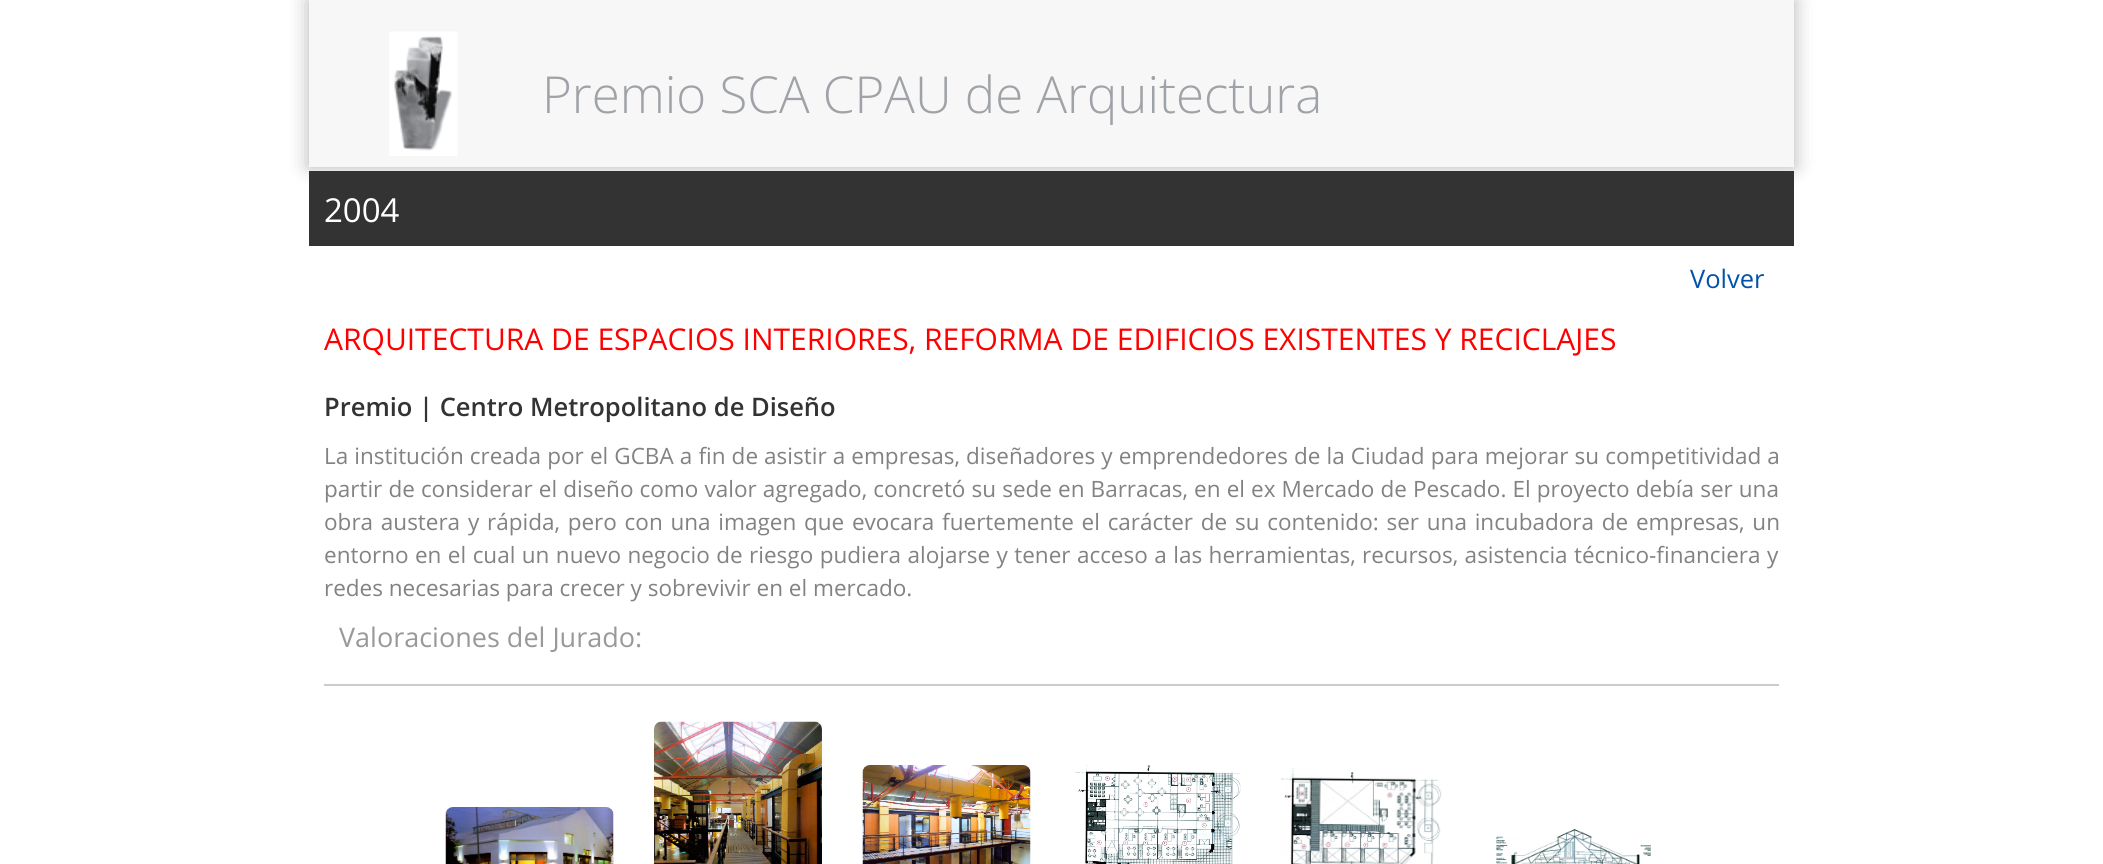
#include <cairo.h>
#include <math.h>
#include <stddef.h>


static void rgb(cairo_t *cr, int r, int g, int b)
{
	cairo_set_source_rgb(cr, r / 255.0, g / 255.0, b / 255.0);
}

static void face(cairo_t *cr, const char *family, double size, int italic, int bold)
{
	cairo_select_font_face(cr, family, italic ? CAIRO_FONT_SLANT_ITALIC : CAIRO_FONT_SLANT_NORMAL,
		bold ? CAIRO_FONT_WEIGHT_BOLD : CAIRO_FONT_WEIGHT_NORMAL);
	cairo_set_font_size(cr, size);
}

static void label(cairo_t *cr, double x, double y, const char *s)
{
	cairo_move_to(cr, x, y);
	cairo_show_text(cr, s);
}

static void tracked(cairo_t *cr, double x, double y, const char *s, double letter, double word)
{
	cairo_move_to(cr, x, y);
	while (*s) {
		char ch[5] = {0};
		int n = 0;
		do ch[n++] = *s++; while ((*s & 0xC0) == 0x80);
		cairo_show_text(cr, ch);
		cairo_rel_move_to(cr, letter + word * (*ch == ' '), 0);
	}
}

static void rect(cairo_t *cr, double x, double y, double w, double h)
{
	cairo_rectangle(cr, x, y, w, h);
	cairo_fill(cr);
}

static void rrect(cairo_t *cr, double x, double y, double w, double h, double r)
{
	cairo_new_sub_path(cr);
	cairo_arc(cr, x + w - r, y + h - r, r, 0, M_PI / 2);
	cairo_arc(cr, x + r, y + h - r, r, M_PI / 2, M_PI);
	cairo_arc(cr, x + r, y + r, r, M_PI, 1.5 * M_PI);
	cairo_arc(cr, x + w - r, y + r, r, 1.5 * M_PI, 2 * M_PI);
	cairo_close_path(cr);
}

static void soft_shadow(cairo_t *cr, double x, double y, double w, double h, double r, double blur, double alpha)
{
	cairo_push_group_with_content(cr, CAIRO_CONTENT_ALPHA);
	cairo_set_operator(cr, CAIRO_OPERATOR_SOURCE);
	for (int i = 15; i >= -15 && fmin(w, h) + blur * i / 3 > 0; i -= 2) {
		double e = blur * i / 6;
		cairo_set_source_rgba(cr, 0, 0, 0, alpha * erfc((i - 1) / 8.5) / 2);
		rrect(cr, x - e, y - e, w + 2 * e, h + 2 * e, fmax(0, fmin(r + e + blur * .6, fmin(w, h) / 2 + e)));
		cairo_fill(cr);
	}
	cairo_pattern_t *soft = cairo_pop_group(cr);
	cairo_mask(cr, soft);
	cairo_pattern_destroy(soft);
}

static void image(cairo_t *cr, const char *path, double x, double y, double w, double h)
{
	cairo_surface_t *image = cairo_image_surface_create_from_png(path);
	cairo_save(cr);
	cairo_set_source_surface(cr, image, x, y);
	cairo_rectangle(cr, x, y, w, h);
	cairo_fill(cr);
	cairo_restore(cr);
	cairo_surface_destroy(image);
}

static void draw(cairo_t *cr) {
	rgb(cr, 255, 255, 255);
	cairo_paint(cr);
	rgb(cr, 0, 0, 0);
	soft_shadow(cr, 309, 0, 1485, 167, 0, 10, 0.3);
	rgb(cr, 247, 247, 247);
	rect(cr, 309, 0, 1485, 167);
	image(cr, "image0.png", 389, 31, 69, 125);
	face(cr, "Open Sans Light", 51, 0, 0);
	rgb(cr, 159, 162, 166);
	label(cr, 542, 113, "Premio SCA CPAU de Arquitectura");
	rgb(cr, 51, 51, 51);
	rect(cr, 309, 171, 1485, 75);
	face(cr, "Open Sans", 33, 0, 0);
	rgb(cr, 255, 255, 255);
	label(cr, 324, 222, "2004");
	face(cr, "Open Sans", 25.5, 0, 0);
	rgb(cr, 2, 82, 170);
	label(cr, 1690, 288, "Volver");
	face(cr, "Open Sans", 30, 0, 0);
	rgb(cr, 255, 0, 0);
	label(cr, 324, 350, "ARQUITECTURA DE ESPACIOS INTERIORES, REFORMA DE EDIFICIOS EXISTENTES Y RECICLAJES");
	face(cr, "Open Sans SemiBold", 25.5, 0, 0);
	rgb(cr, 51, 51, 51);
	label(cr, 324, 416, "Premio | Centro Metropolitano de Diseño");
	rgb(cr, 204, 204, 204);
	rect(cr, 324, 684, 1455, 2);
	face(cr, "Open Sans", 22.5, 0, 0);
	rgb(cr, 130, 130, 130);
	tracked(cr, 324, 464, "La institución creada por el GCBA a fin de asistir a empresas, diseñadores y emprendedores de la Ciudad para mejorar su competitividad a", 0, 0.25);
	tracked(cr, 324, 497, "partir de considerar el diseño como valor agregado, concretó su sede en Barracas, en el ex Mercado de Pescado. El proyecto debía ser una", 0, 0.25);
	tracked(cr, 324, 530, "obra austera y rápida, pero con una imagen que evocara fuertemente el carácter de su contenido: ser una incubadora de empresas, un", 0, 1.9);
	tracked(cr, 324, 563, "entorno en el cual un nuevo negocio de riesgo pudiera alojarse y tener acceso a las herramientas, recursos, asistencia técnico-financiera y", 0, 0.6);
	label(cr, 324, 596, "redes necesarias para crecer y sobrevivir en el mercado.");
	face(cr, "Open Sans", 27, 0, 0);
	rgb(cr, 153, 153, 153);
	label(cr, 339, 647, "Valoraciones del Jurado:");
	image(cr, "image1.png", 445, 807, 169, 57);
	image(cr, "image2.png", 654, 721, 168, 143);
	image(cr, "image3.png", 862, 765, 169, 99);
	image(cr, "image4.png", 1075, 765, 166, 99);
	image(cr, "image5.png", 1281, 768, 161, 96);
	image(cr, "image6.png", 1496, 828, 155, 36);
}

int main(void) {
	cairo_surface_t *surface = cairo_image_surface_create(CAIRO_FORMAT_RGB24, 2103, 864);
	cairo_t *cr = cairo_create(surface);
	cairo_font_options_t *options = cairo_font_options_create();
	cairo_font_options_set_hint_metrics(options, CAIRO_HINT_METRICS_OFF);
	cairo_font_options_set_hint_style(options, CAIRO_HINT_STYLE_NONE);
	cairo_set_font_options(cr, options);
	cairo_set_miter_limit(cr, 4);
	draw(cr);
	cairo_surface_write_to_png(surface, "render.png");
	cairo_font_options_destroy(options);
	cairo_destroy(cr);
	cairo_surface_destroy(surface);
	return 0;
}
